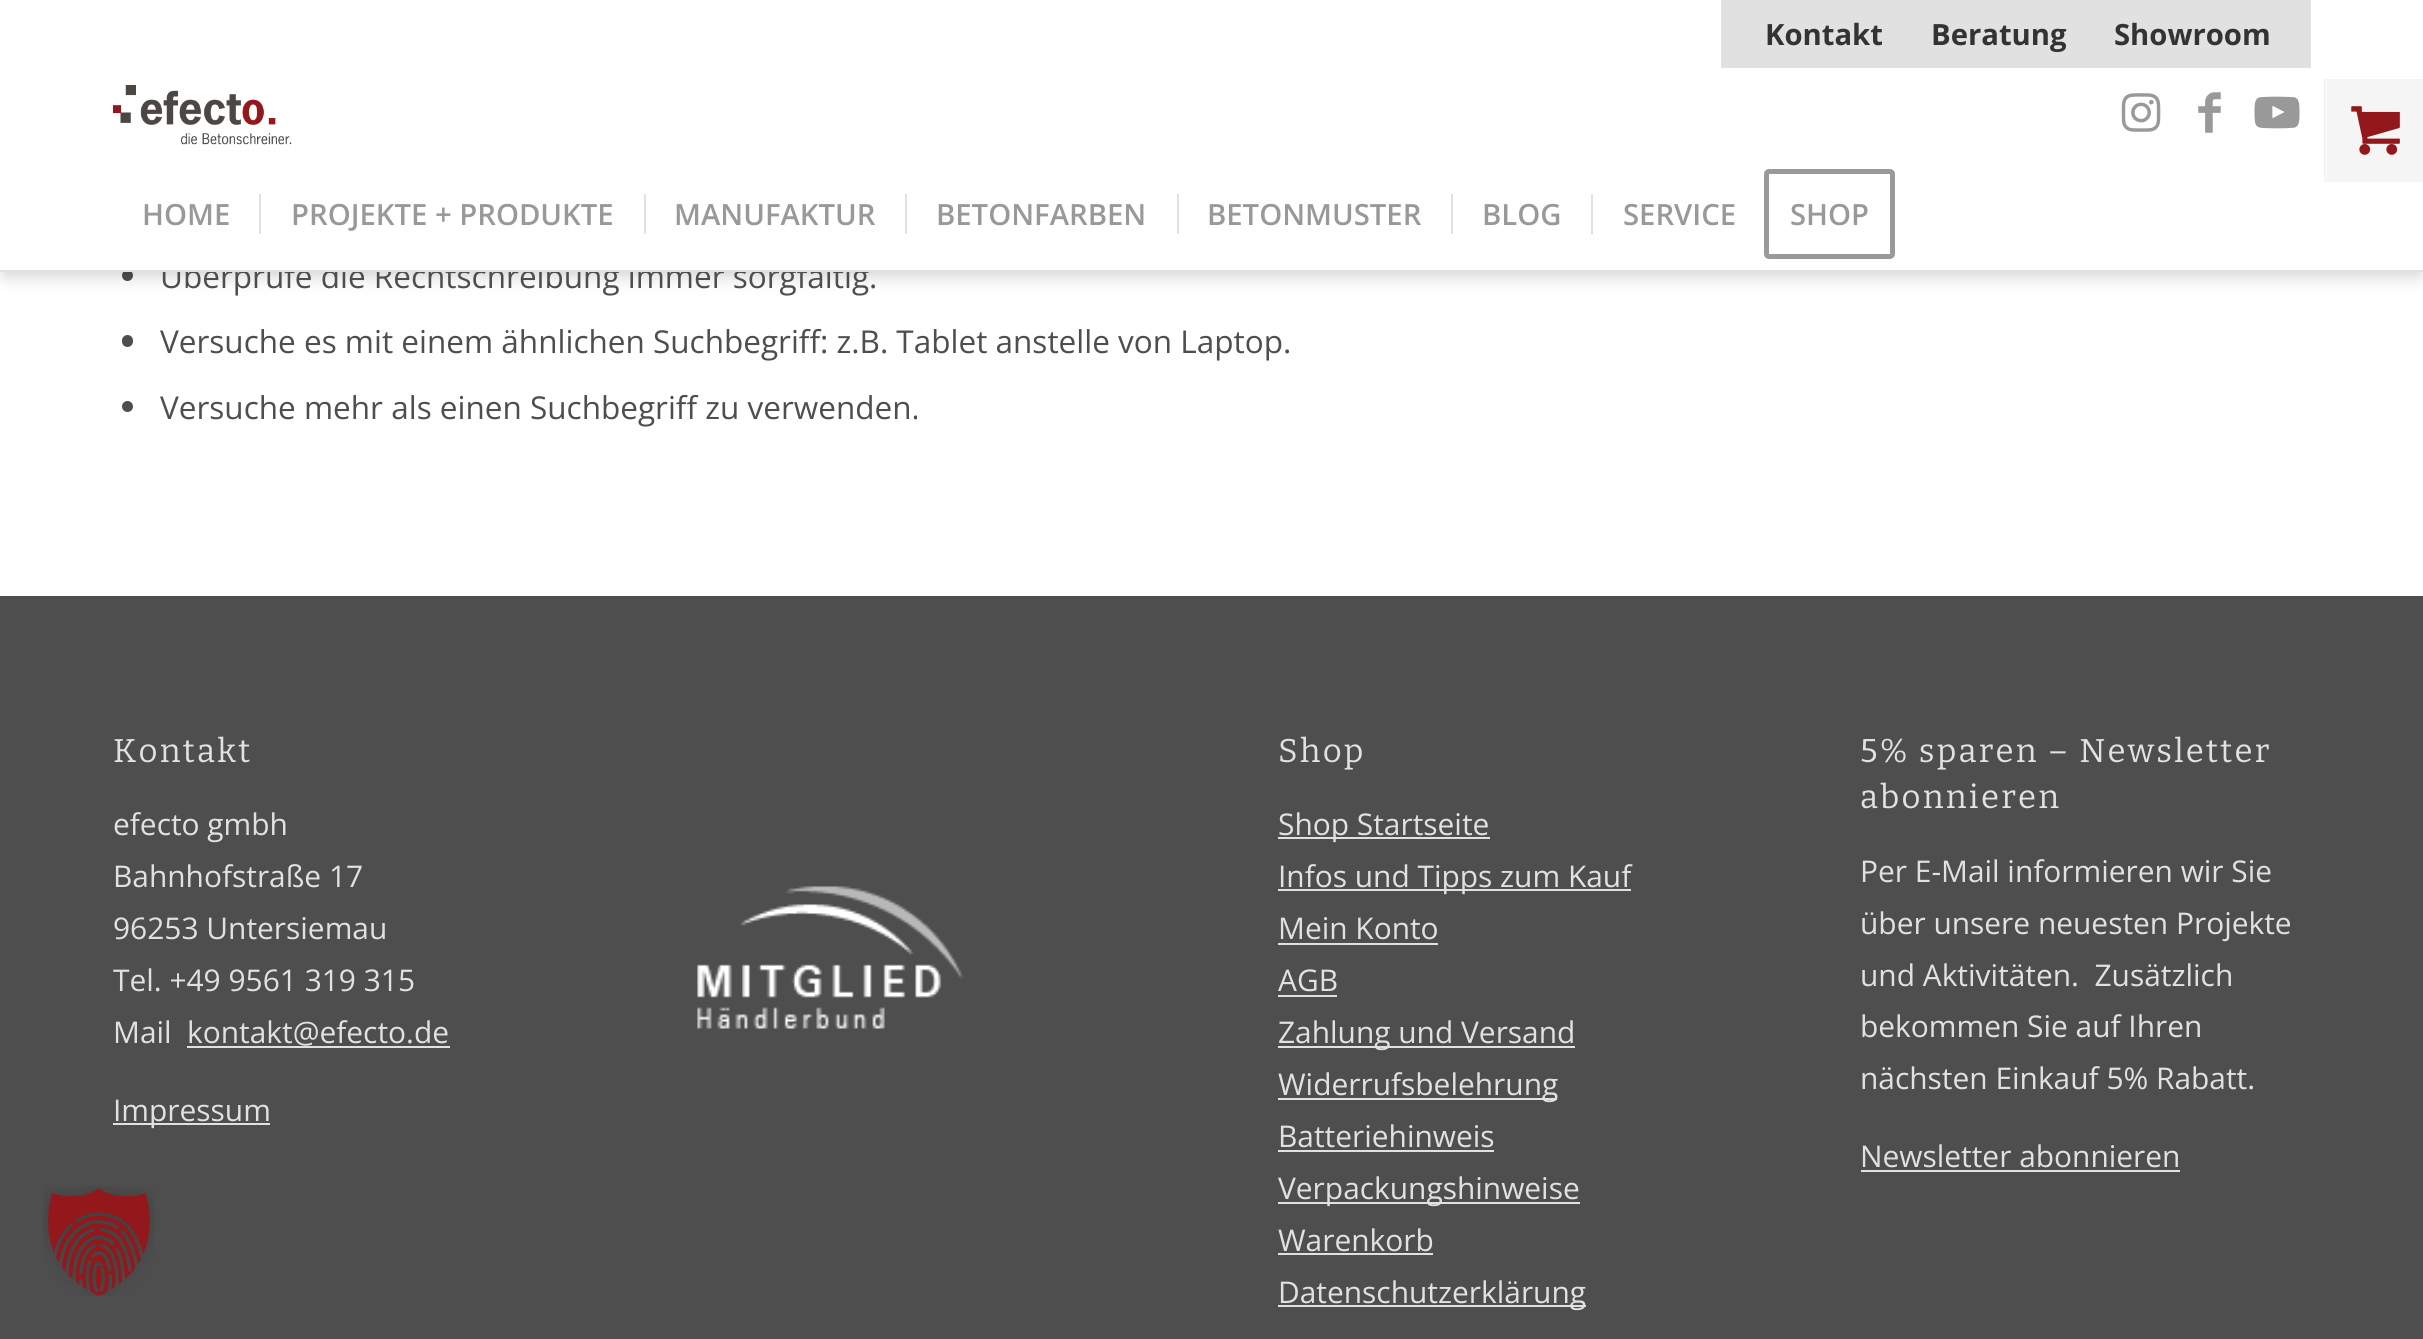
#include <cairo.h>
#include <math.h>
#include <stddef.h>


static void rgb(cairo_t *cr, int r, int g, int b)
{
	cairo_set_source_rgb(cr, r / 255.0, g / 255.0, b / 255.0);
}

static void face(cairo_t *cr, const char *family, double size, int italic, int bold)
{
	cairo_select_font_face(cr, family, italic ? CAIRO_FONT_SLANT_ITALIC : CAIRO_FONT_SLANT_NORMAL,
		bold ? CAIRO_FONT_WEIGHT_BOLD : CAIRO_FONT_WEIGHT_NORMAL);
	cairo_set_font_size(cr, size);
}

static void label(cairo_t *cr, double x, double y, const char *s)
{
	cairo_move_to(cr, x, y);
	cairo_show_text(cr, s);
}

static void tracked(cairo_t *cr, double x, double y, const char *s, double letter, double word)
{
	cairo_move_to(cr, x, y);
	while (*s) {
		char ch[5] = {0};
		int n = 0;
		do ch[n++] = *s++; while ((*s & 0xC0) == 0x80);
		cairo_show_text(cr, ch);
		cairo_rel_move_to(cr, letter + word * (*ch == ' '), 0);
	}
}

static void rect(cairo_t *cr, double x, double y, double w, double h)
{
	cairo_rectangle(cr, x, y, w, h);
	cairo_fill(cr);
}

static void rrect(cairo_t *cr, double x, double y, double w, double h, double r)
{
	cairo_new_sub_path(cr);
	cairo_arc(cr, x + w - r, y + h - r, r, 0, M_PI / 2);
	cairo_arc(cr, x + r, y + h - r, r, M_PI / 2, M_PI);
	cairo_arc(cr, x + r, y + r, r, M_PI, 1.5 * M_PI);
	cairo_arc(cr, x + w - r, y + r, r, 1.5 * M_PI, 2 * M_PI);
	cairo_close_path(cr);
}

static void soft_shadow(cairo_t *cr, double x, double y, double w, double h, double r, double blur, double alpha)
{
	cairo_push_group_with_content(cr, CAIRO_CONTENT_ALPHA);
	cairo_set_operator(cr, CAIRO_OPERATOR_SOURCE);
	for (int i = 15; i >= -15 && fmin(w, h) + blur * i / 3 > 0; i -= 2) {
		double e = blur * i / 6;
		cairo_set_source_rgba(cr, 0, 0, 0, alpha * erfc((i - 1) / 8.5) / 2);
		rrect(cr, x - e, y - e, w + 2 * e, h + 2 * e, fmax(0, fmin(r + e + blur * .6, fmin(w, h) / 2 + e)));
		cairo_fill(cr);
	}
	cairo_pattern_t *soft = cairo_pop_group(cr);
	cairo_mask(cr, soft);
	cairo_pattern_destroy(soft);
}

static void image(cairo_t *cr, const char *path, double x, double y, double w, double h)
{
	cairo_surface_t *image = cairo_image_surface_create_from_png(path);
	cairo_save(cr);
	cairo_set_source_surface(cr, image, x, y);
	cairo_rectangle(cr, x, y, w, h);
	cairo_fill(cr);
	cairo_restore(cr);
	cairo_surface_destroy(image);
}

static void draw(cairo_t *cr) {
	rgb(cr, 255, 255, 255);
	cairo_paint(cr);
	rgb(cr, 78, 78, 78);
	rect(cr, 0, 596, 2423, 743);
	image(cr, "image0.png", 43, 1186, 112, 110);
	cairo_arc(cr, 127.5, 275.5, 5.5, 0, 2 * M_PI);
	cairo_fill(cr);
	rgb(cr, 0, 0, 0);
	soft_shadow(cr, 5, 11, 2414, 264, 0, 9, 0.2);
	face(cr, "Open Sans", 31.5, 0, 0);
	rgb(cr, 78, 78, 78);
	label(cr, 160, 288, "Überprüfe die Rechtschreibung immer sorgfältig.");
	rgb(cr, 225, 225, 225);
	rect(cr, 0, 270, 2423, 2);
	rgb(cr, 255, 255, 255);
	rect(cr, 0, 0, 2423, 270);
	rgb(cr, 225, 225, 225);
	rect(cr, 1721, 0, 590, 68);
	face(cr, "Open Sans", 29.25, 0, 1);
	rgb(cr, 51, 51, 51);
	label(cr, 1765, 45, "Kontakt");
	label(cr, 1931, 45, "Beratung");
	label(cr, 2114, 45, "Showroom");
	image(cr, "image1.png", 113, 85, 179, 60);
	image(cr, "image2.png", 2121, 93, 40, 39);
	image(cr, "image3.png", 2198, 92, 23, 41);
	image(cr, "image4.png", 2254, 96, 46, 33);
	cairo_rectangle(cr, 2325, 80, 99, 101);
	rgb(cr, 245, 245, 245);
	cairo_stroke(cr);
	rect(cr, 2327, 81, 96, 99);
	image(cr, "image5.png", 2351, 106, 49, 49);
	face(cr, "Open Sans SemiBold", 29.25, 0, 0);
	rgb(cr, 153, 153, 153);
	label(cr, 142, 225, "HOME");
	label(cr, 291, 225, "PROJEKTE + PRODUKTE");
	rgb(cr, 225, 225, 225);
	rect(cr, 259, 194, 2, 40);
	rgb(cr, 153, 153, 153);
	label(cr, 674, 225, "MANUFAKTUR");
	rgb(cr, 225, 225, 225);
	rect(cr, 644, 194, 2, 40);
	rgb(cr, 153, 153, 153);
	label(cr, 936, 225, "BETONFARBEN");
	rgb(cr, 225, 225, 225);
	rect(cr, 905, 194, 2, 40);
	rgb(cr, 153, 153, 153);
	label(cr, 1207, 225, "BETONMUSTER");
	rgb(cr, 225, 225, 225);
	rect(cr, 1177, 194, 2, 40);
	rgb(cr, 153, 153, 153);
	label(cr, 1482, 225, "BLOG");
	rgb(cr, 225, 225, 225);
	rect(cr, 1451, 194, 2, 40);
	rgb(cr, 153, 153, 153);
	label(cr, 1623, 225, "SERVICE");
	rgb(cr, 225, 225, 225);
	rect(cr, 1591, 194, 2, 40);
	rrect(cr, 1766.5, 171.5, 126, 85, 2.5);
	rgb(cr, 153, 153, 153);
	cairo_set_line_width(cr, 5);
	cairo_stroke(cr);
	label(cr, 1790, 225, "SHOP");
	rgb(cr, 78, 78, 78);
	rrect(cr, 122, 335, 11, 12, 5.5);
	cairo_fill(cr);
	face(cr, "Open Sans", 31.5, 0, 0);
	label(cr, 160, 353, "Versuche es mit einem ähnlichen Suchbegriff: z.B. Tablet anstelle von Laptop.");
	cairo_new_path(cr);
	cairo_arc(cr, 127.5, 406.5, 5.5, 0, 2 * M_PI);
	cairo_fill(cr);
	label(cr, 160, 419, "Versuche mehr als einen Suchbegriff zu verwenden.");
	face(cr, "Bitter Thin", 32.9, 0, 0);
	rgb(cr, 225, 225, 225);
	tracked(cr, 113, 762, "Kontakt", 2.25, 0);
	face(cr, "Open Sans", 29.9, 0, 0);
	label(cr, 113, 835, "efecto gmbh");
	label(cr, 113, 887, "Bahnhofstraße 17");
	label(cr, 113, 939, "96253 Untersiemau");
	cairo_save(cr);
	cairo_rectangle(cr, 113, 700, 450, 461);
	cairo_clip(cr);
	label(cr, 113, 991, "Tel. +49 9561 319 315");
	cairo_restore(cr);
	label(cr, 113, 1043, "Mail");
	label(cr, 187, 1043, "kontakt@efecto.de");
	rect(cr, 187, 1046, 263, 2);
	rect(cr, 113, 1123, 157, 2);
	label(cr, 113, 1121, "Impressum");
	image(cr, "image6.png", 697, 886, 267, 143);
	face(cr, "Bitter Thin", 32.9, 0, 0);
	tracked(cr, 1278, 762, "Shop", 2.25, 0);
	rect(cr, 1278, 837, 212, 2);
	face(cr, "Open Sans", 29.9, 0, 0);
	label(cr, 1278, 835, "Shop Startseite");
	rect(cr, 1278, 889, 353, 2);
	label(cr, 1278, 887, "Infos und Tipps zum Kauf");
	label(cr, 1278, 939, "Mein Konto");
	rect(cr, 1278, 943, 160, 2);
	label(cr, 1278, 991, "AGB");
	rect(cr, 1278, 995, 59, 2);
	rect(cr, 1278, 1046, 297, 2);
	label(cr, 1278, 1043, "Zahlung und Versand");
	rect(cr, 1278, 1098, 279, 2);
	label(cr, 1278, 1095, "Widerrufsbelehrung");
	label(cr, 1278, 1147, "Batteriehinweis");
	rect(cr, 1278, 1150, 216, 2);
	rect(cr, 1278, 1202, 302, 2);
	label(cr, 1278, 1199, "Verpackungshinweise");
	label(cr, 1278, 1251, "Warenkorb");
	rect(cr, 1278, 1253, 155, 2);
	rect(cr, 1278, 1305, 308, 2);
	label(cr, 1278, 1303, "Datenschutzerklärung");
	face(cr, "Bitter Thin", 32.9, 0, 0);
	tracked(cr, 1860, 762, "5% sparen – Newsletter", 2.25, 0);
	tracked(cr, 1860, 808, "abonnieren", 2.25, 0);
	face(cr, "Open Sans", 29.9, 0, 0);
	label(cr, 1860, 882, "Per E-Mail informieren wir Sie");
	label(cr, 1860, 934, "über unsere neuesten Projekte");
	label(cr, 1860, 986, "und Aktivitäten.  Zusätzlich");
	label(cr, 1860, 1037, "bekommen Sie auf Ihren");
	label(cr, 1860, 1089, "nächsten Einkauf 5% Rabatt.");
	label(cr, 1860, 1167, "Newsletter abonnieren");
	rect(cr, 1861, 1170, 319, 2);
}

int main(void) {
	cairo_surface_t *surface = cairo_image_surface_create(CAIRO_FORMAT_RGB24, 2423, 1339);
	cairo_t *cr = cairo_create(surface);
	cairo_font_options_t *options = cairo_font_options_create();
	cairo_font_options_set_hint_metrics(options, CAIRO_HINT_METRICS_OFF);
	cairo_font_options_set_hint_style(options, CAIRO_HINT_STYLE_NONE);
	cairo_set_font_options(cr, options);
	cairo_set_miter_limit(cr, 4);
	draw(cr);
	cairo_surface_write_to_png(surface, "render.png");
	cairo_font_options_destroy(options);
	cairo_destroy(cr);
	cairo_surface_destroy(surface);
	return 0;
}
